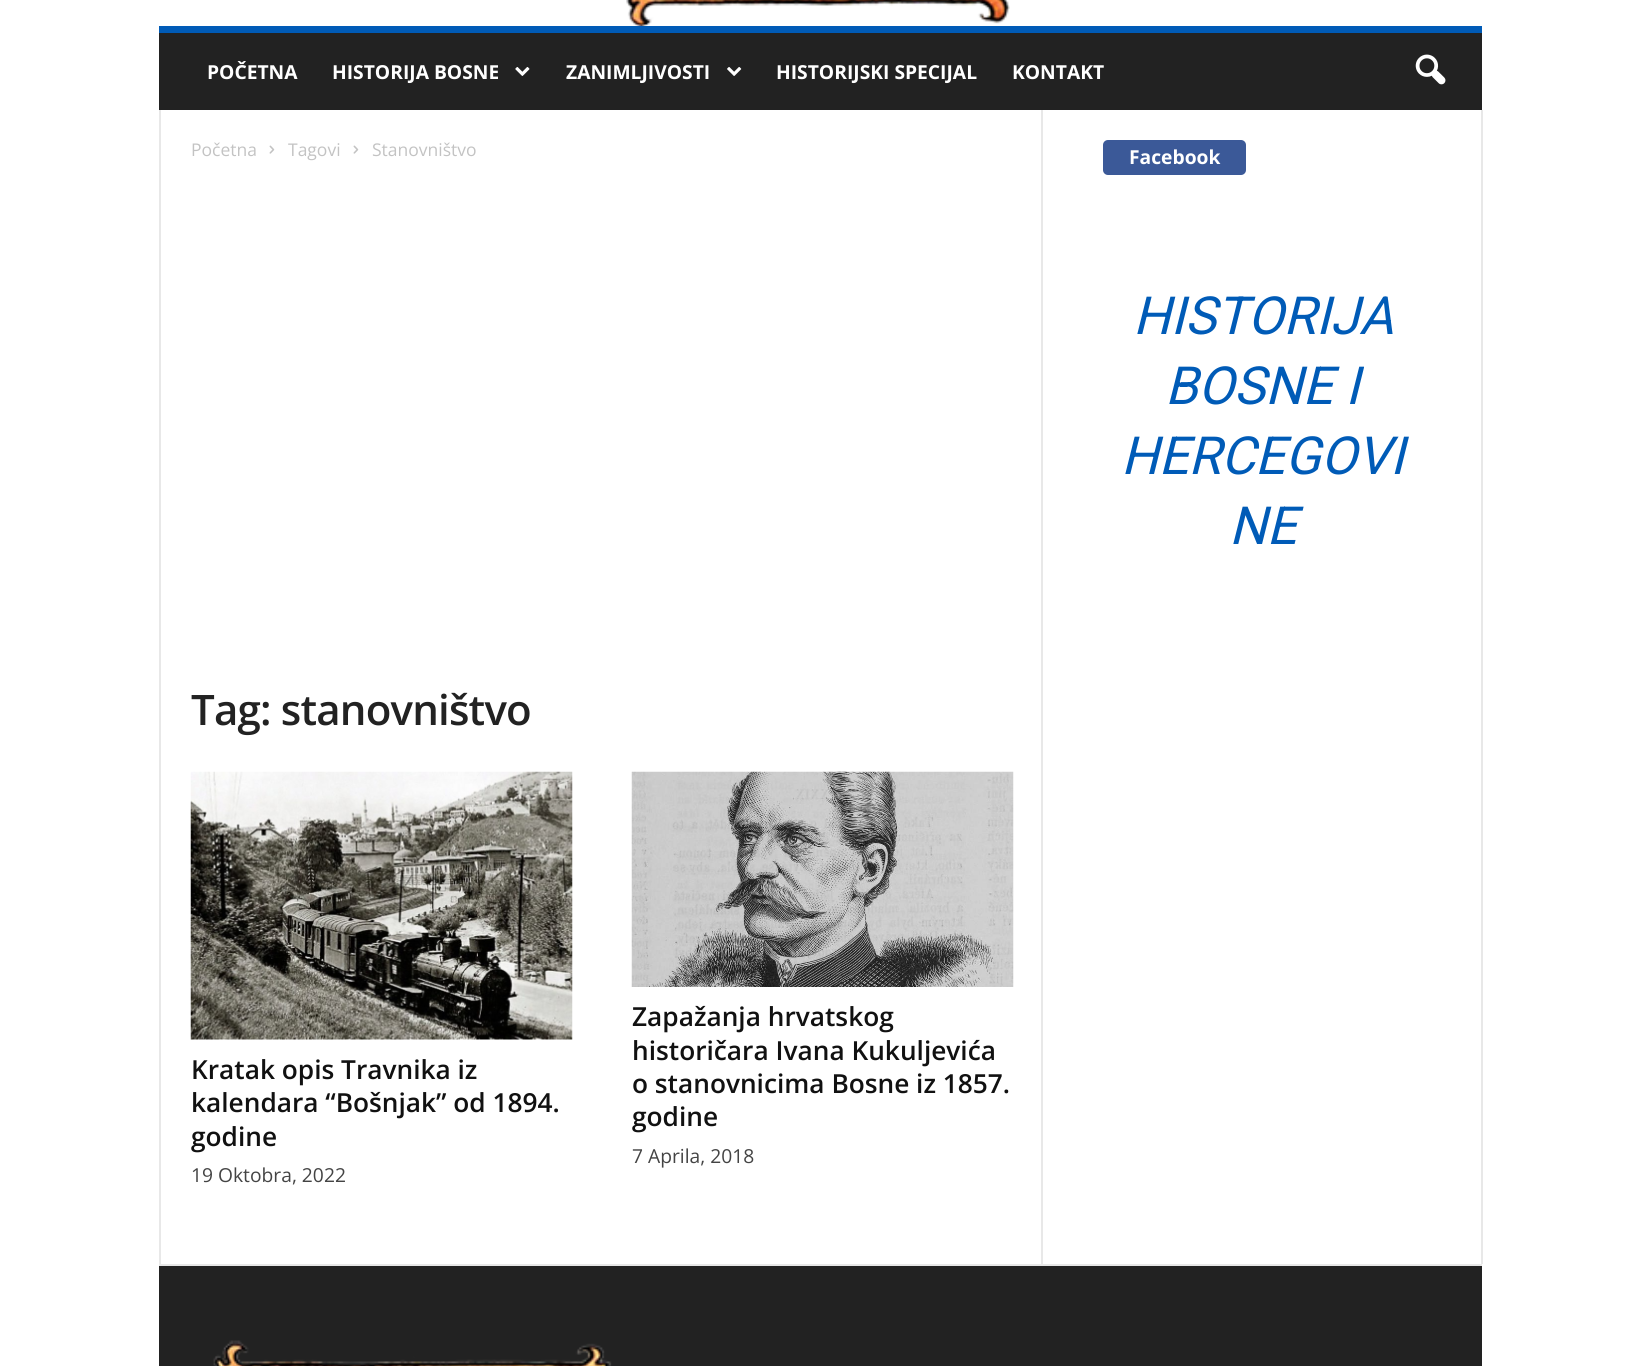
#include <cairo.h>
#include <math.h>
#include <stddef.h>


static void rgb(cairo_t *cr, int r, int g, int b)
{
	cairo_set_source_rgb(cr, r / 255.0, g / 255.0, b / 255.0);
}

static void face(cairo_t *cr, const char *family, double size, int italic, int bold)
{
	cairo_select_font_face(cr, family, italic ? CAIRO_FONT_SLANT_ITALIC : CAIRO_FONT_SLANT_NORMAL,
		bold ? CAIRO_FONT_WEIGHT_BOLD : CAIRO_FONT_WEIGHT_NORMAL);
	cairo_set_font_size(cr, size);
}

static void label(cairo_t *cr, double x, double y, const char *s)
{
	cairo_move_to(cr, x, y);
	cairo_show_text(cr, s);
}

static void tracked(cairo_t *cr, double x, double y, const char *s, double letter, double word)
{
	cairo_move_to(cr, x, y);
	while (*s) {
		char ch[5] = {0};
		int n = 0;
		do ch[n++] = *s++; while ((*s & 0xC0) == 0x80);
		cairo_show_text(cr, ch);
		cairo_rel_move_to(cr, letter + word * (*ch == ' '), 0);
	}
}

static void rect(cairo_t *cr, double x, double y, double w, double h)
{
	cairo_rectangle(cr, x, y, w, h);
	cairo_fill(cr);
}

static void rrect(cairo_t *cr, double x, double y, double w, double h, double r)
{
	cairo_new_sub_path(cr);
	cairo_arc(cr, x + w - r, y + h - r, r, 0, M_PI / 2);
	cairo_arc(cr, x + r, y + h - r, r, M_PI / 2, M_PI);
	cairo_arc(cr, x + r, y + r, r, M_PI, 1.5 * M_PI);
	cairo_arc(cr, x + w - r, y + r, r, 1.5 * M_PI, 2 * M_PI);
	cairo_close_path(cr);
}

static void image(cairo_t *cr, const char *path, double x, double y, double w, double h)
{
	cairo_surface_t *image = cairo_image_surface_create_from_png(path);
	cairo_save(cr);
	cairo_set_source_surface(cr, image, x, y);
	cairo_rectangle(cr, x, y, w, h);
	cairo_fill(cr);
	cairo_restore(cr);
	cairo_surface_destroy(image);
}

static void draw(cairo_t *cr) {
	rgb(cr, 255, 255, 255);
	cairo_paint(cr);
	image(cr, "image0.png", 626, 0, 384, 26);
	rgb(cr, 34, 34, 34);
	rect(cr, 159, 33, 1323, 77);
	rgb(cr, 0, 91, 183);
	rect(cr, 159, 26, 1323, 7);
	face(cr, "Open Sans", 19.25, 0, 1);
	rgb(cr, 255, 255, 255);
	label(cr, 207, 79, "POČETNA");
	label(cr, 332, 79, "HISTORIJA BOSNE");
	image(cr, "image1.png", 515, 67, 15, 9);
	label(cr, 566, 79, "ZANIMLJIVOSTI");
	image(cr, "image2.png", 727, 67, 15, 9);
	label(cr, 776, 79, "HISTORIJSKI SPECIJAL");
	label(cr, 1012, 79, "KONTAKT");
	image(cr, "image3.png", 1415, 54, 31, 31);
	rgb(cr, 232, 232, 232);
	rect(cr, 159, 1264, 1323, 2);
	rect(cr, 159, 110, 2, 1154);
	face(cr, "Open Sans", 17.5, 0, 0);
	rgb(cr, 195, 195, 195);
	label(cr, 191, 156, "Početna");
	image(cr, "image4.png", 269, 145, 6, 9);
	label(cr, 288, 156, "Tagovi");
	image(cr, "image4.png", 353, 145, 6, 9);
	label(cr, 372, 156, "Stanovništvo");
	face(cr, "Open Sans SemiBold", 42, 0, 0);
	rgb(cr, 34, 34, 34);
	tracked(cr, 191, 725, "Tag: stanovništvo", -0.8, 0);
	image(cr, "image5.png", 190, 771, 383, 269);
	face(cr, "Open Sans SemiBold", 26.25, 0, 0);
	rgb(cr, 17, 17, 17);
	label(cr, 191, 1079, "Kratak opis Travnika iz");
	label(cr, 191, 1112, "kalendara “Bošnjak” od 1894.");
	label(cr, 191, 1146, "godine");
	face(cr, "Open Sans", 19.25, 0, 0);
	rgb(cr, 68, 68, 68);
	label(cr, 191, 1182, "19 Oktobra, 2022");
	image(cr, "image6.png", 631, 771, 383, 216);
	face(cr, "Open Sans SemiBold", 26.25, 0, 0);
	rgb(cr, 17, 17, 17);
	label(cr, 632, 1026, "Zapažanja hrvatskog");
	label(cr, 632, 1060, "historičara Ivana Kukuljevića");
	label(cr, 632, 1093, "o stanovnicima Bosne iz 1857.");
	label(cr, 632, 1126, "godine");
	face(cr, "Open Sans", 19.25, 0, 0);
	rgb(cr, 68, 68, 68);
	label(cr, 632, 1163, "7 Aprila, 2018");
	rgb(cr, 232, 232, 232);
	rect(cr, 1041, 110, 2, 1154);
	rgb(cr, 59, 89, 152);
	rrect(cr, 1103, 140, 143, 35, 5);
	cairo_fill(cr);
	face(cr, "Open Sans", 19.25, 0, 1);
	rgb(cr, 255, 255, 255);
	label(cr, 1129, 164, "Facebook");
	face(cr, "Roboto", 52.5, 1, 0);
	rgb(cr, 0, 91, 183);
	label(cr, 1133, 334, "HISTORIJA");
	label(cr, 1165, 404, "BOSNE I");
	label(cr, 1121, 474, "HERCEGOVI");
	label(cr, 1229, 544, "NE");
	rgb(cr, 232, 232, 232);
	rect(cr, 1481, 110, 2, 1154);
	rgb(cr, 34, 34, 34);
	rect(cr, 159, 1266, 1323, 100);
	image(cr, "image7.png", 213, 1340, 399, 26);
}

int main(void) {
	cairo_surface_t *surface = cairo_image_surface_create(CAIRO_FORMAT_RGB24, 1640, 1366);
	cairo_t *cr = cairo_create(surface);
	cairo_font_options_t *options = cairo_font_options_create();
	cairo_font_options_set_hint_metrics(options, CAIRO_HINT_METRICS_OFF);
	cairo_font_options_set_hint_style(options, CAIRO_HINT_STYLE_NONE);
	cairo_set_font_options(cr, options);
	cairo_set_miter_limit(cr, 4);
	draw(cr);
	cairo_surface_write_to_png(surface, "render.png");
	cairo_font_options_destroy(options);
	cairo_destroy(cr);
	cairo_surface_destroy(surface);
	return 0;
}
